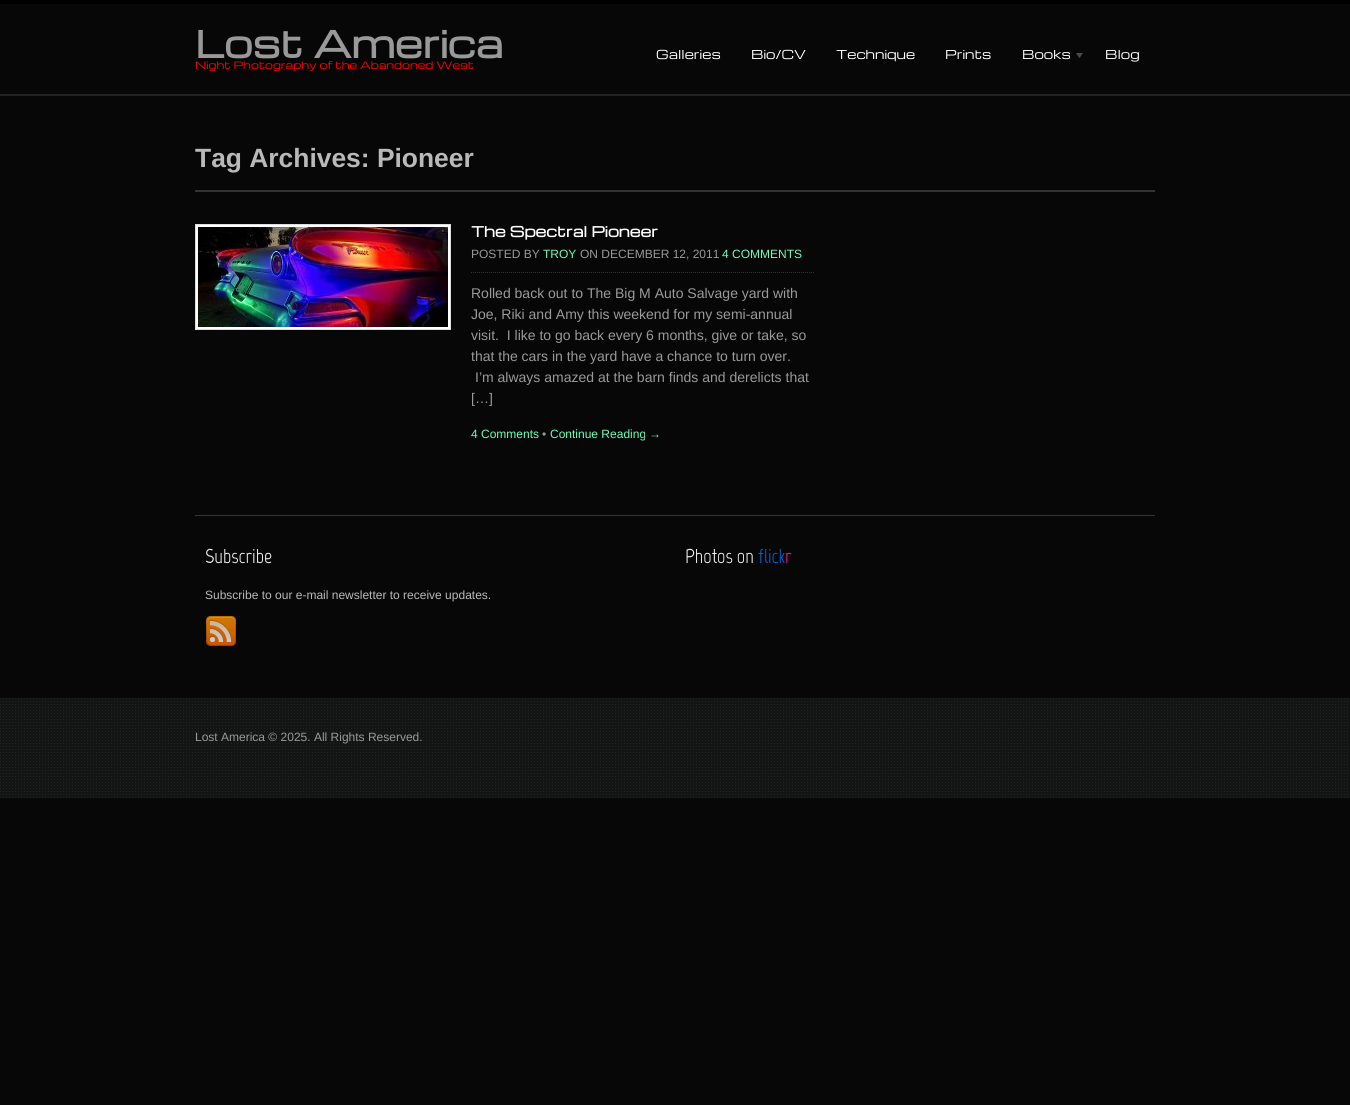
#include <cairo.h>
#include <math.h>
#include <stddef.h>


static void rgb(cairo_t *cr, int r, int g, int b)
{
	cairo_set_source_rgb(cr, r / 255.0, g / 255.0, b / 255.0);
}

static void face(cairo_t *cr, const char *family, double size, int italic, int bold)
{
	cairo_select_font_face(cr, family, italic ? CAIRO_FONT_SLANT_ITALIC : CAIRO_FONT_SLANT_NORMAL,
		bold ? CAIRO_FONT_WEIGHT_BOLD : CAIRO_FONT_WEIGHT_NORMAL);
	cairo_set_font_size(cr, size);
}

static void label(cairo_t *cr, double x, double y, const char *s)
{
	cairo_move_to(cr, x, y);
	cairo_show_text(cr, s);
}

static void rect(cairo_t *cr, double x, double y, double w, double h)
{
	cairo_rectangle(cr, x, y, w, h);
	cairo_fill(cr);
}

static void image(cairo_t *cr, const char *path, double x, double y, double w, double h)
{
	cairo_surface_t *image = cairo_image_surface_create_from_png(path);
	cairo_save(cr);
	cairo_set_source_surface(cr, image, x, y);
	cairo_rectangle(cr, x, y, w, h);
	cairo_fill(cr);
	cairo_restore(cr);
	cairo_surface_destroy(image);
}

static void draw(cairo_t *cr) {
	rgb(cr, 7, 7, 7);
	cairo_paint(cr);
	rgb(cr, 0, 0, 0);
	rect(cr, 0, 0, 1350, 4);
	rgb(cr, 34, 34, 34);
	rect(cr, 0, 94, 1350, 2);
	face(cr, "Michroma", 36, 0, 1);
	rgb(cr, 153, 153, 153);
	label(cr, 195, 58, "Lost America");
	face(cr, "Michroma", 10, 0, 0);
	rgb(cr, 255, 0, 0);
	label(cr, 195, 69, "Night Photography of the Abandoned West");
	face(cr, "Michroma", 12, 0, 0);
	rgb(cr, 255, 255, 255);
	label(cr, 656, 59, "Galleries");
	label(cr, 751, 59, "Bio/CV");
	label(cr, 836, 59, "Technique");
	label(cr, 945, 59, "Prints");
	label(cr, 1022, 59, "Books");
	image(cr, "image0.png", 1076, 53, 7, 5);
	label(cr, 1105, 59, "Blog");
	rgb(cr, 51, 51, 51);
	rect(cr, 195, 190, 960, 2);
	face(cr, "Arimo", 26.4, 0, 1);
	rgb(cr, 185, 185, 185);
	label(cr, 195, 167, "Tag Archives: Pioneer");
	rgb(cr, 51, 51, 51);
	rect(cr, 195, 515, 960, 1);
	rgb(cr, 255, 255, 255);
	cairo_rectangle(cr, 195.5, 224.5, 255, 105);
	cairo_fill_preserve(cr);
	rgb(cr, 221, 221, 221);
	cairo_set_line_width(cr, 1);
	cairo_stroke(cr);
	image(cr, "image1.png", 198, 227, 250, 100);
	face(cr, "Michroma", 14, 0, 1);
	rgb(cr, 255, 255, 255);
	label(cr, 471, 237, "The Spectral Pioneer");
	cairo_new_path(cr);
	cairo_move_to(cr, 471, 272.5);
	cairo_line_to(cr, 815, 272.5);
	rgb(cr, 51, 51, 51);
	cairo_set_dash(cr, (double[]){1, 1}, 2, 0);
	cairo_stroke(cr);
	face(cr, "Arimo", 12, 0, 0);
	rgb(cr, 153, 153, 153);
	label(cr, 471, 258, "POSTED BY");
	rgb(cr, 105, 255, 183);
	label(cr, 543, 258, "TROY");
	rgb(cr, 153, 153, 153);
	label(cr, 580, 258, "ON DECEMBER 12, 2011");
	rgb(cr, 105, 255, 183);
	label(cr, 722, 258, "4 COMMENTS");
	face(cr, "Arimo", 14, 0, 0);
	rgb(cr, 153, 153, 153);
	label(cr, 471, 298, "Rolled back out to The Big M Auto Salvage yard with");
	label(cr, 471, 319, "Joe, Riki and Amy this weekend for my semi-annual");
	label(cr, 471, 340, "visit.  I like to go back every 6 months, give or take, so");
	label(cr, 471, 361, "that the cars in the yard have a chance to turn over.");
	label(cr, 475, 382, "I’m always amazed at the barn finds and derelicts that");
	label(cr, 471, 403, "[…]");
	face(cr, "Arimo", 12, 0, 0);
	rgb(cr, 105, 255, 183);
	label(cr, 471, 438, "4 Comments");
	rgb(cr, 153, 153, 153);
	label(cr, 542, 438, "•");
	rgb(cr, 105, 255, 183);
	label(cr, 550, 438, "Continue Reading");
	face(cr, "Liberation Sans", 12, 0, 0);
	label(cr, 649, 438, "→");
	face(cr, "Marvel", 20, 0, 0);
	rgb(cr, 238, 238, 238);
	label(cr, 205, 563, "Subscribe");
	face(cr, "Arimo", 12, 0, 0);
	rgb(cr, 185, 185, 185);
	label(cr, 205, 599, "Subscribe to our e-mail newsletter to receive updates.");
	image(cr, "image2.png", 206, 616, 30, 30);
	face(cr, "Marvel", 20, 0, 0);
	rgb(cr, 238, 238, 238);
	label(cr, 685, 563, "Photos on");
	rgb(cr, 0, 97, 216);
	label(cr, 758, 563, "flick");
	rgb(cr, 255, 17, 131);
	label(cr, 785, 563, "r");
	rgb(cr, 34, 34, 34);
	rect(cr, 0, 698, 1348, 100);
	image(cr, "image3.png", 0, 698, 1350, 100);
	face(cr, "Arimo", 12, 0, 0);
	rgb(cr, 153, 153, 153);
	label(cr, 195, 741, "Lost America © 2025. All Rights Reserved.");
}

int main(void) {
	cairo_surface_t *surface = cairo_image_surface_create(CAIRO_FORMAT_RGB24, 1350, 1105);
	cairo_t *cr = cairo_create(surface);
	cairo_font_options_t *options = cairo_font_options_create();
	cairo_font_options_set_hint_metrics(options, CAIRO_HINT_METRICS_OFF);
	cairo_font_options_set_hint_style(options, CAIRO_HINT_STYLE_NONE);
	cairo_set_font_options(cr, options);
	cairo_set_miter_limit(cr, 4);
	draw(cr);
	cairo_surface_write_to_png(surface, "render.png");
	cairo_font_options_destroy(options);
	cairo_destroy(cr);
	cairo_surface_destroy(surface);
	return 0;
}
